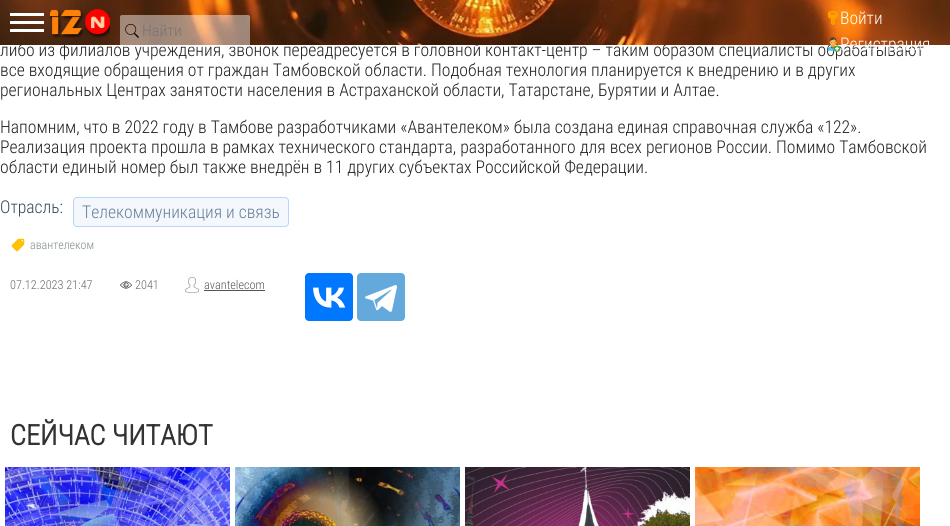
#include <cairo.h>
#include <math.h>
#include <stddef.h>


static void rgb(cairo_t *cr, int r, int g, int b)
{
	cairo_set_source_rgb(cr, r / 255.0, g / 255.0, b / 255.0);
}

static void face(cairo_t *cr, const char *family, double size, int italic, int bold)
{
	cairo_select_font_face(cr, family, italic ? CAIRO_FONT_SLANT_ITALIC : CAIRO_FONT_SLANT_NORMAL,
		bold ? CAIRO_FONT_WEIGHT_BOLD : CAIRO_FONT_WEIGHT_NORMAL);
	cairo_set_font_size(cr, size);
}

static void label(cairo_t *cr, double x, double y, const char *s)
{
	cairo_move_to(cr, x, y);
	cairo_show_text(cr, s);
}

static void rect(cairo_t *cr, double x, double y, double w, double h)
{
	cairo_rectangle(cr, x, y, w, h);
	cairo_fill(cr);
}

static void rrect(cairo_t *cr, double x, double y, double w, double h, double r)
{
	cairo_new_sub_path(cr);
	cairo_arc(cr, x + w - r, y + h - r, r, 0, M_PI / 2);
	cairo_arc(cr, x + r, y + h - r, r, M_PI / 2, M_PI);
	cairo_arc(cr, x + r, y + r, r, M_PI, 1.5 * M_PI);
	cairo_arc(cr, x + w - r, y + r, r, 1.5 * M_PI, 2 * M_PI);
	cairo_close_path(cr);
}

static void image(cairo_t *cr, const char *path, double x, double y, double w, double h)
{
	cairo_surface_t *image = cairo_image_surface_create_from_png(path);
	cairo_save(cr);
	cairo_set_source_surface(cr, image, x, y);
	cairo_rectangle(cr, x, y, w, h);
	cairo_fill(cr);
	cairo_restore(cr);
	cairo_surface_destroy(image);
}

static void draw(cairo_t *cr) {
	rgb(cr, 255, 255, 255);
	cairo_paint(cr);
	face(cr, "Roboto Condensed Light", 17.6, 0, 0);
	rgb(cr, 34, 34, 34);
	label(cr, 0, 56, "либо из филиалов учреждения, звонок переадресуется в головной контакт-центр – таким образом специалисты обрабатывают");
	image(cr, "image0.png", 0, 0, 950, 45);
	rgb(cr, 255, 255, 255);
	rect(cr, 10, 21, 34, 3);
	rect(cr, 10, 13, 34, 3);
	rect(cr, 10, 29, 34, 3);
	image(cr, "image1.png", 50, 9, 60, 29);
	cairo_set_source_rgba(cr, 1, 1, 1, 0.45);
	rrect(cr, 120, 15, 130, 32, 2);
	cairo_fill(cr);
	image(cr, "image2.png", 125, 24, 14, 14);
	face(cr, "Roboto Condensed Light", 16, 0, 0);
	rgb(cr, 117, 117, 117);
	label(cr, 142, 36, "Найти");
	image(cr, "image3.png", 828, 11, 10, 14);
	face(cr, "Roboto Condensed Light", 17.5, 0, 0);
	rgb(cr, 255, 255, 255);
	label(cr, 840, 24, "Войти");
	image(cr, "image4.png", 827, 37, 14, 15);
	label(cr, 840, 50, "Регистрация");
	face(cr, "Roboto Condensed Light", 17.6, 0, 0);
	rgb(cr, 34, 34, 34);
	label(cr, 0, 76, "все входящие обращения от граждан Тамбовской области. Подобная технология планируется к внедрению и в других");
	label(cr, 0, 96, "региональных Центрах занятости населения в Астраханской области, Татарстане, Бурятии и Алтае.");
	label(cr, 0, 133, "Напомним, что в 2022 году в Тамбове разработчиками «Авантелеком» была создана единая справочная служба «122».");
	label(cr, 0, 153, "Реализация проекта прошла в рамках технического стандарта, разработанного для всех регионов России. Помимо Тамбовской");
	label(cr, 0, 173, "области единый номер был также внедрён в 11 других субъектах Российской Федерации.");
	rgb(cr, 52, 73, 94);
	label(cr, 0, 213, "Отрасль:");
	rgb(cr, 244, 248, 253);
	rrect(cr, 73.5, 197.5, 215, 29, 3.5);
	cairo_fill_preserve(cr);
	rgb(cr, 184, 214, 251);
	cairo_set_line_width(cr, 1);
	cairo_stroke(cr);
	rgb(cr, 104, 128, 155);
	label(cr, 82, 218, "Телекоммуникация и связь");
	image(cr, "image5.png", 11, 238, 14, 14);
	face(cr, "Roboto Condensed Light", 12, 0, 0);
	rgb(cr, 127, 140, 141);
	label(cr, 30, 249, "авантелеком");
	face(cr, "Roboto Condensed Light", 12.25, 0, 0);
	rgb(cr, 104, 104, 104);
	label(cr, 10, 289, "07.12.2023 21:47");
	image(cr, "image6.png", 120, 281, 12, 8);
	label(cr, 135, 289, "2041");
	image(cr, "image7.png", 185, 277, 14, 16);
	rgb(cr, 85, 85, 85);
	label(cr, 204, 289, "avantelecom");
	rect(cr, 204, 290, 61, 1);
	rgb(cr, 0, 119, 255);
	rrect(cr, 305, 273, 48, 48, 4);
	cairo_fill(cr);
	image(cr, "image8.png", 313, 287, 33, 21);
	rgb(cr, 100, 169, 220);
	rrect(cr, 357, 273, 48, 48, 4);
	cairo_fill(cr);
	image(cr, "image9.png", 365, 285, 32, 27);
	face(cr, "Roboto Condensed", 28.25, 0, 1);
	rgb(cr, 51, 51, 51);
	label(cr, 10, 445, "СЕЙЧАС ЧИТАЮТ");
	image(cr, "image10.png", 5, 467, 225, 59);
	image(cr, "image11.png", 235, 467, 225, 59);
	image(cr, "image12.png", 465, 467, 225, 59);
	image(cr, "image13.png", 695, 467, 225, 59);
}

int main(void) {
	cairo_surface_t *surface = cairo_image_surface_create(CAIRO_FORMAT_RGB24, 950, 526);
	cairo_t *cr = cairo_create(surface);
	cairo_font_options_t *options = cairo_font_options_create();
	cairo_font_options_set_hint_metrics(options, CAIRO_HINT_METRICS_OFF);
	cairo_font_options_set_hint_style(options, CAIRO_HINT_STYLE_NONE);
	cairo_set_font_options(cr, options);
	cairo_set_miter_limit(cr, 4);
	draw(cr);
	cairo_surface_write_to_png(surface, "render.png");
	cairo_font_options_destroy(options);
	cairo_destroy(cr);
	cairo_surface_destroy(surface);
	return 0;
}
